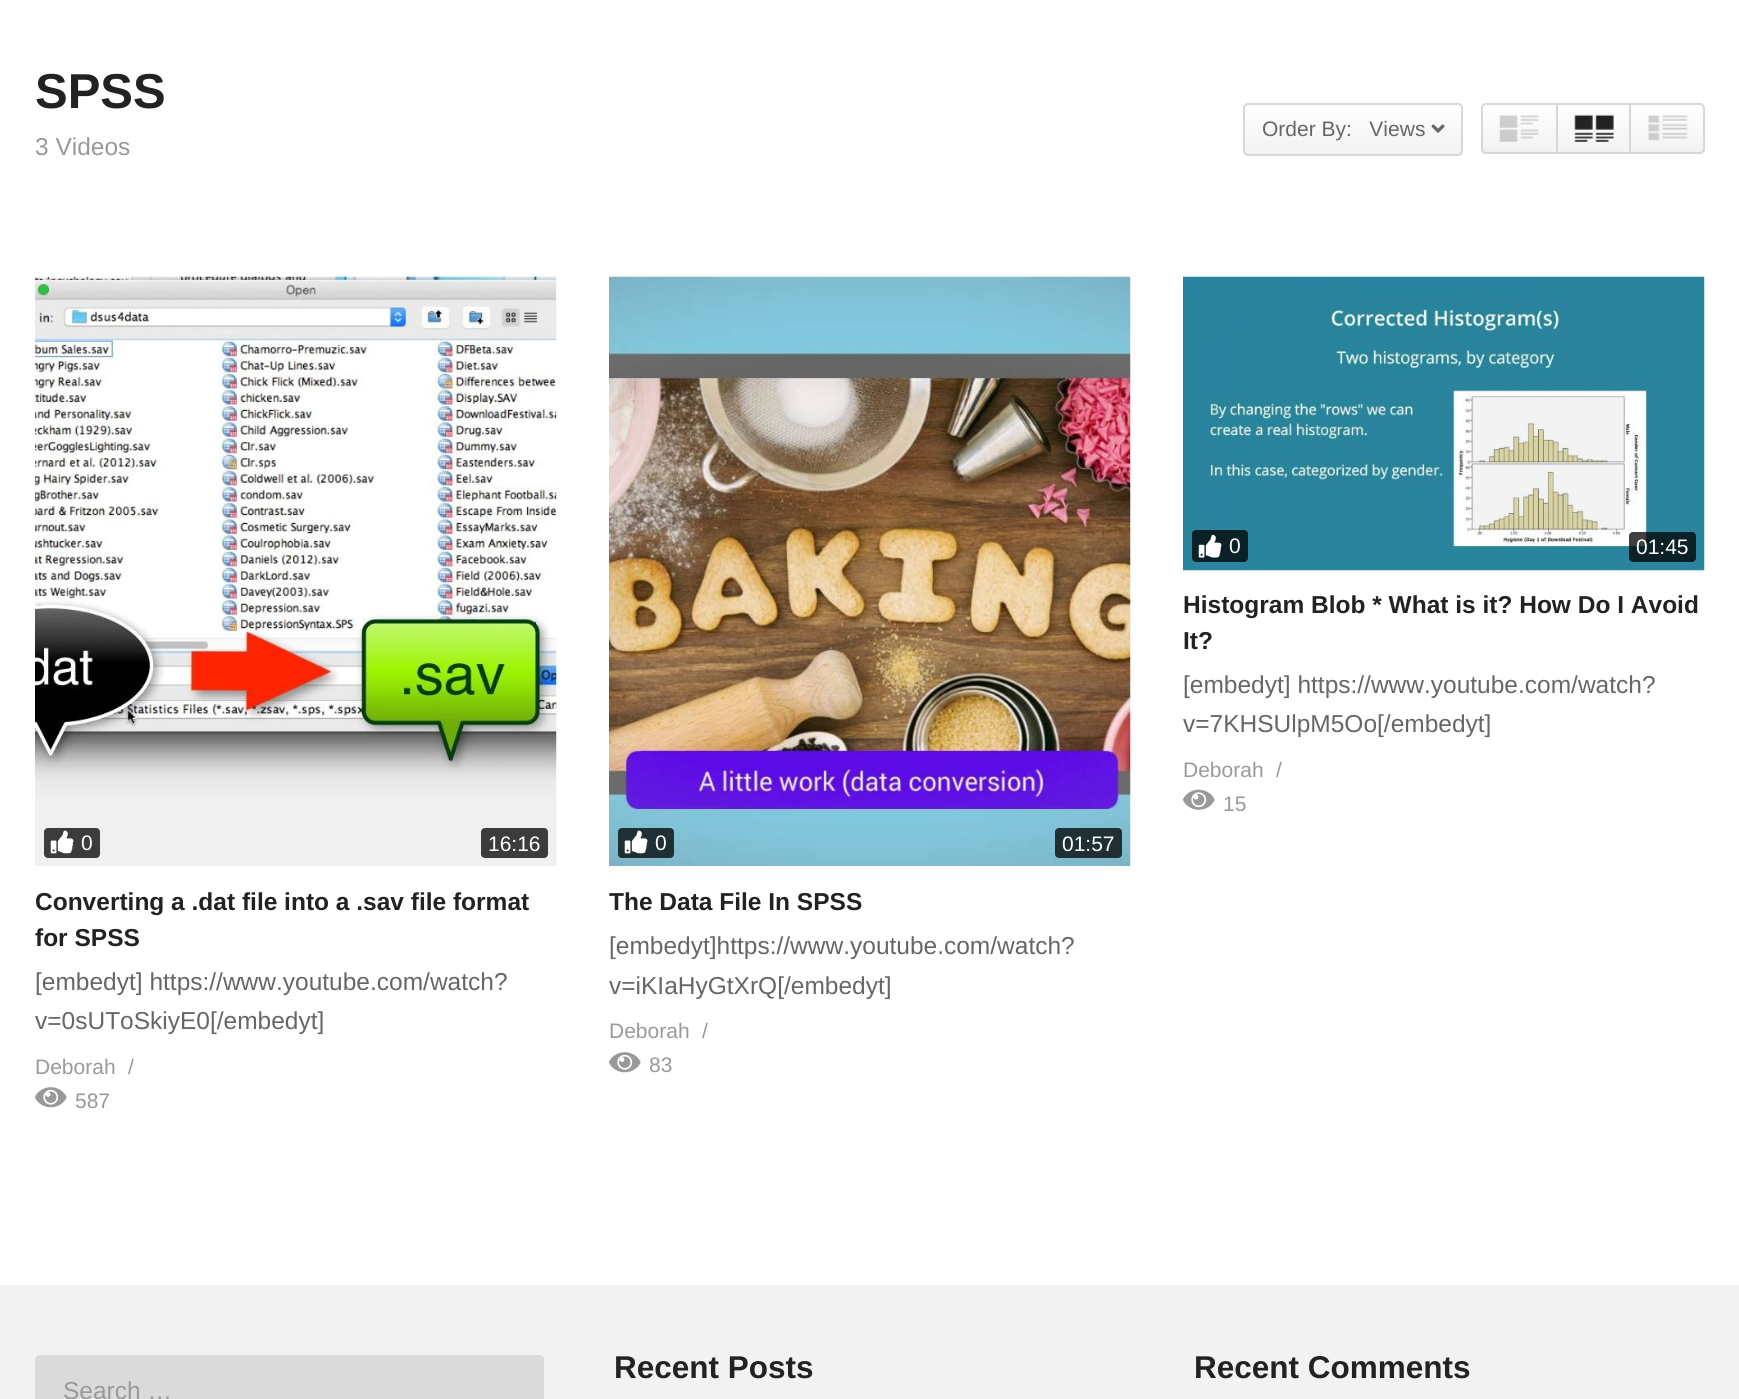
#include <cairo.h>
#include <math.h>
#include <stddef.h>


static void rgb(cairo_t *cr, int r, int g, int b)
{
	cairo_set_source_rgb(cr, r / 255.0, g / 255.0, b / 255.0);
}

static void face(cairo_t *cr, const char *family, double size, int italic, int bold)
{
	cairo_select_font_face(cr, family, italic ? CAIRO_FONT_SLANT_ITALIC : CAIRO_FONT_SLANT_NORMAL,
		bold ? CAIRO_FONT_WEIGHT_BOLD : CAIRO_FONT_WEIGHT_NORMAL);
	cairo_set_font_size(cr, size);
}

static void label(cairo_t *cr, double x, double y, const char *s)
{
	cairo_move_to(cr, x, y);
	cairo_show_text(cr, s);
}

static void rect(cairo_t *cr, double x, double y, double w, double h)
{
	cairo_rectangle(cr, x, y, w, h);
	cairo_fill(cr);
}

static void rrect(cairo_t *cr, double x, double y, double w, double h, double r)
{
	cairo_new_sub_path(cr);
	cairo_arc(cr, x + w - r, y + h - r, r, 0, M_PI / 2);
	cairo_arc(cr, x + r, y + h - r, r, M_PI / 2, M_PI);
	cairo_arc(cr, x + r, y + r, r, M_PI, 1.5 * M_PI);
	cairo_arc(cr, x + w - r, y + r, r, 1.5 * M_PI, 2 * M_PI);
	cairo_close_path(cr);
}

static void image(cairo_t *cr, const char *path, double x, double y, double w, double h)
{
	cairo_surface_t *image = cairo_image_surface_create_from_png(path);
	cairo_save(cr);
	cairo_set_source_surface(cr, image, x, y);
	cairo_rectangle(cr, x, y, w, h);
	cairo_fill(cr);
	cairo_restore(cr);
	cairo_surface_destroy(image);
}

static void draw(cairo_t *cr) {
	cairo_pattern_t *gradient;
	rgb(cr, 255, 255, 255);
	cairo_paint(cr);
	face(cr, "Liberation Sans", 49, 0, 1);
	rgb(cr, 34, 34, 34);
	label(cr, 35, 108, "SPSS");
	face(cr, "Liberation Sans", 24.5, 0, 0);
	rgb(cr, 153, 153, 153);
	label(cr, 35, 155, "3 Videos");
	cairo_save(cr);
	rrect(cr, 1243, 103, 220, 53, 5);
	cairo_clip(cr);
	gradient = cairo_pattern_create_linear(1353, 105, 1353, 154);
	cairo_pattern_add_color_stop_rgba(gradient, 0, 1, 1, 1, 1);
	cairo_pattern_add_color_stop_rgba(gradient, 1, 0.949, 0.949, 0.949, 1);
	cairo_set_source(cr, gradient);
	cairo_pattern_destroy(gradient);
	rect(cr, 1243, 105, 220, 49);
	cairo_restore(cr);
	rrect(cr, 1244, 104, 218, 51, 4);
	rgb(cr, 215, 215, 215);
	cairo_stroke(cr);
	face(cr, "Liberation Sans", 21, 0, 0);
	rgb(cr, 102, 102, 102);
	label(cr, 1262, 136, "Order By:   Views");
	image(cr, "image0.png", 1431, 124, 14, 9);
	cairo_save(cr);
	rrect(cr, 1481, 103, 224, 51, 5);
	cairo_clip(cr);
	gradient = cairo_pattern_create_linear(1593, 105, 1593, 152);
	cairo_pattern_add_color_stop_rgba(gradient, 0, 1, 1, 1, 1);
	cairo_pattern_add_color_stop_rgba(gradient, 1, 0.949, 0.949, 0.949, 1);
	cairo_set_source(cr, gradient);
	cairo_pattern_destroy(gradient);
	rect(cr, 1481, 105, 224, 47);
	cairo_restore(cr);
	rrect(cr, 1482, 104, 222, 49, 4);
	rgb(cr, 215, 215, 215);
	cairo_stroke(cr);
	image(cr, "image1.png", 1499, 115, 40, 27);
	rect(cr, 1556, 105, 2, 47);
	image(cr, "image2.png", 1574, 114, 40, 28);
	rect(cr, 1629, 105, 2, 47);
	image(cr, "image3.png", 1648, 115, 40, 26);
	image(cr, "image4.png", 1183, 276, 522, 295);
	rgb(cr, 11, 33, 40);
	rrect(cr, 1192, 530, 56, 32, 4);
	cairo_fill(cr);
	image(cr, "image5.png", 1198, 534, 24, 24);
	rgb(cr, 255, 255, 255);
	label(cr, 1229, 553, "0");
	cairo_set_source_rgba(cr, 0, 0, 0, 0.75);
	rrect(cr, 1629, 532, 67, 30, 4);
	cairo_fill(cr);
	rgb(cr, 255, 255, 255);
	label(cr, 1636, 554, "01:45");
	face(cr, "Liberation Sans", 24.5, 0, 1);
	rgb(cr, 34, 34, 34);
	label(cr, 1183, 613, "Histogram Blob * What is it? How Do I Avoid");
	label(cr, 1183, 649, "It?");
	face(cr, "Liberation Sans", 24.5, 0, 0);
	rgb(cr, 102, 102, 102);
	label(cr, 1183, 693, "[embedyt] https://www.youtube.com/watch?");
	label(cr, 1183, 732, "v=7KHSUlpM5Oo[/embedyt]");
	face(cr, "Liberation Sans", 21, 0, 0);
	rgb(cr, 153, 153, 153);
	label(cr, 1183, 777, "Deborah");
	label(cr, 1276, 777, "/");
	image(cr, "image6.png", 1183, 789, 32, 21);
	label(cr, 1223, 811, "15");
	image(cr, "image7.png", 35, 276, 522, 590);
	rgb(cr, 60, 60, 60);
	rrect(cr, 44, 828, 56, 30, 4);
	cairo_fill(cr);
	image(cr, "image8.png", 50, 830, 24, 24);
	rgb(cr, 255, 255, 255);
	label(cr, 81, 850, "0");
	rgb(cr, 60, 60, 60);
	rrect(cr, 481, 828, 67, 30, 4);
	cairo_fill(cr);
	rgb(cr, 255, 255, 255);
	label(cr, 488, 851, "16:16");
	face(cr, "Liberation Sans", 24.5, 0, 1);
	rgb(cr, 34, 34, 34);
	label(cr, 35, 910, "Converting a .dat file into a .sav file format");
	label(cr, 35, 946, "for SPSS");
	face(cr, "Liberation Sans", 24.5, 0, 0);
	rgb(cr, 102, 102, 102);
	label(cr, 35, 990, "[embedyt] https://www.youtube.com/watch?");
	label(cr, 35, 1029, "v=0sUToSkiyE0[/embedyt]");
	face(cr, "Liberation Sans", 21, 0, 0);
	rgb(cr, 153, 153, 153);
	label(cr, 35, 1074, "Deborah");
	label(cr, 128, 1074, "/");
	image(cr, "image9.png", 35, 1087, 32, 21);
	label(cr, 75, 1108, "587");
	image(cr, "image10.png", 609, 276, 522, 591);
	cairo_set_source_rgba(cr, 0, 0, 0, 0.75);
	rrect(cr, 618, 828, 56, 30, 4);
	cairo_fill(cr);
	image(cr, "image11.png", 624, 830, 24, 24);
	rgb(cr, 255, 255, 255);
	label(cr, 655, 850, "0");
	cairo_set_source_rgba(cr, 0, 0, 0, 0.75);
	rrect(cr, 1055, 828, 67, 30, 4);
	cairo_fill(cr);
	rgb(cr, 255, 255, 255);
	label(cr, 1062, 851, "01:57");
	face(cr, "Liberation Sans", 24.5, 0, 1);
	rgb(cr, 34, 34, 34);
	label(cr, 609, 910, "The Data File In SPSS");
	face(cr, "Liberation Sans", 24.5, 0, 0);
	rgb(cr, 102, 102, 102);
	label(cr, 609, 954, "[embedyt]https://www.youtube.com/watch?");
	label(cr, 609, 994, "v=iKIaHyGtXrQ[/embedyt]");
	face(cr, "Liberation Sans", 21, 0, 0);
	rgb(cr, 153, 153, 153);
	label(cr, 609, 1038, "Deborah");
	label(cr, 702, 1038, "/");
	image(cr, "image9.png", 609, 1052, 32, 21);
	label(cr, 649, 1072, "83");
	rgb(cr, 242, 242, 242);
	rect(cr, 0, 1285, 1739, 114);
	face(cr, "Liberation Sans", 31.5, 0, 1);
	rgb(cr, 34, 34, 34);
	label(cr, 614, 1378, "Recent Posts");
	label(cr, 1194, 1378, "Recent Comments");
	rgb(cr, 218, 218, 218);
	rrect(cr, 35, 1355, 509, 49, 5);
	cairo_fill(cr);
	face(cr, "Liberation Sans", 24.5, 0, 0);
	rgb(cr, 153, 153, 153);
	label(cr, 63, 1399, "Search …");
}

int main(void) {
	cairo_surface_t *surface = cairo_image_surface_create(CAIRO_FORMAT_RGB24, 1739, 1399);
	cairo_t *cr = cairo_create(surface);
	cairo_font_options_t *options = cairo_font_options_create();
	cairo_font_options_set_hint_metrics(options, CAIRO_HINT_METRICS_OFF);
	cairo_font_options_set_hint_style(options, CAIRO_HINT_STYLE_NONE);
	cairo_set_font_options(cr, options);
	cairo_set_miter_limit(cr, 4);
	draw(cr);
	cairo_surface_write_to_png(surface, "render.png");
	cairo_font_options_destroy(options);
	cairo_destroy(cr);
	cairo_surface_destroy(surface);
	return 0;
}
